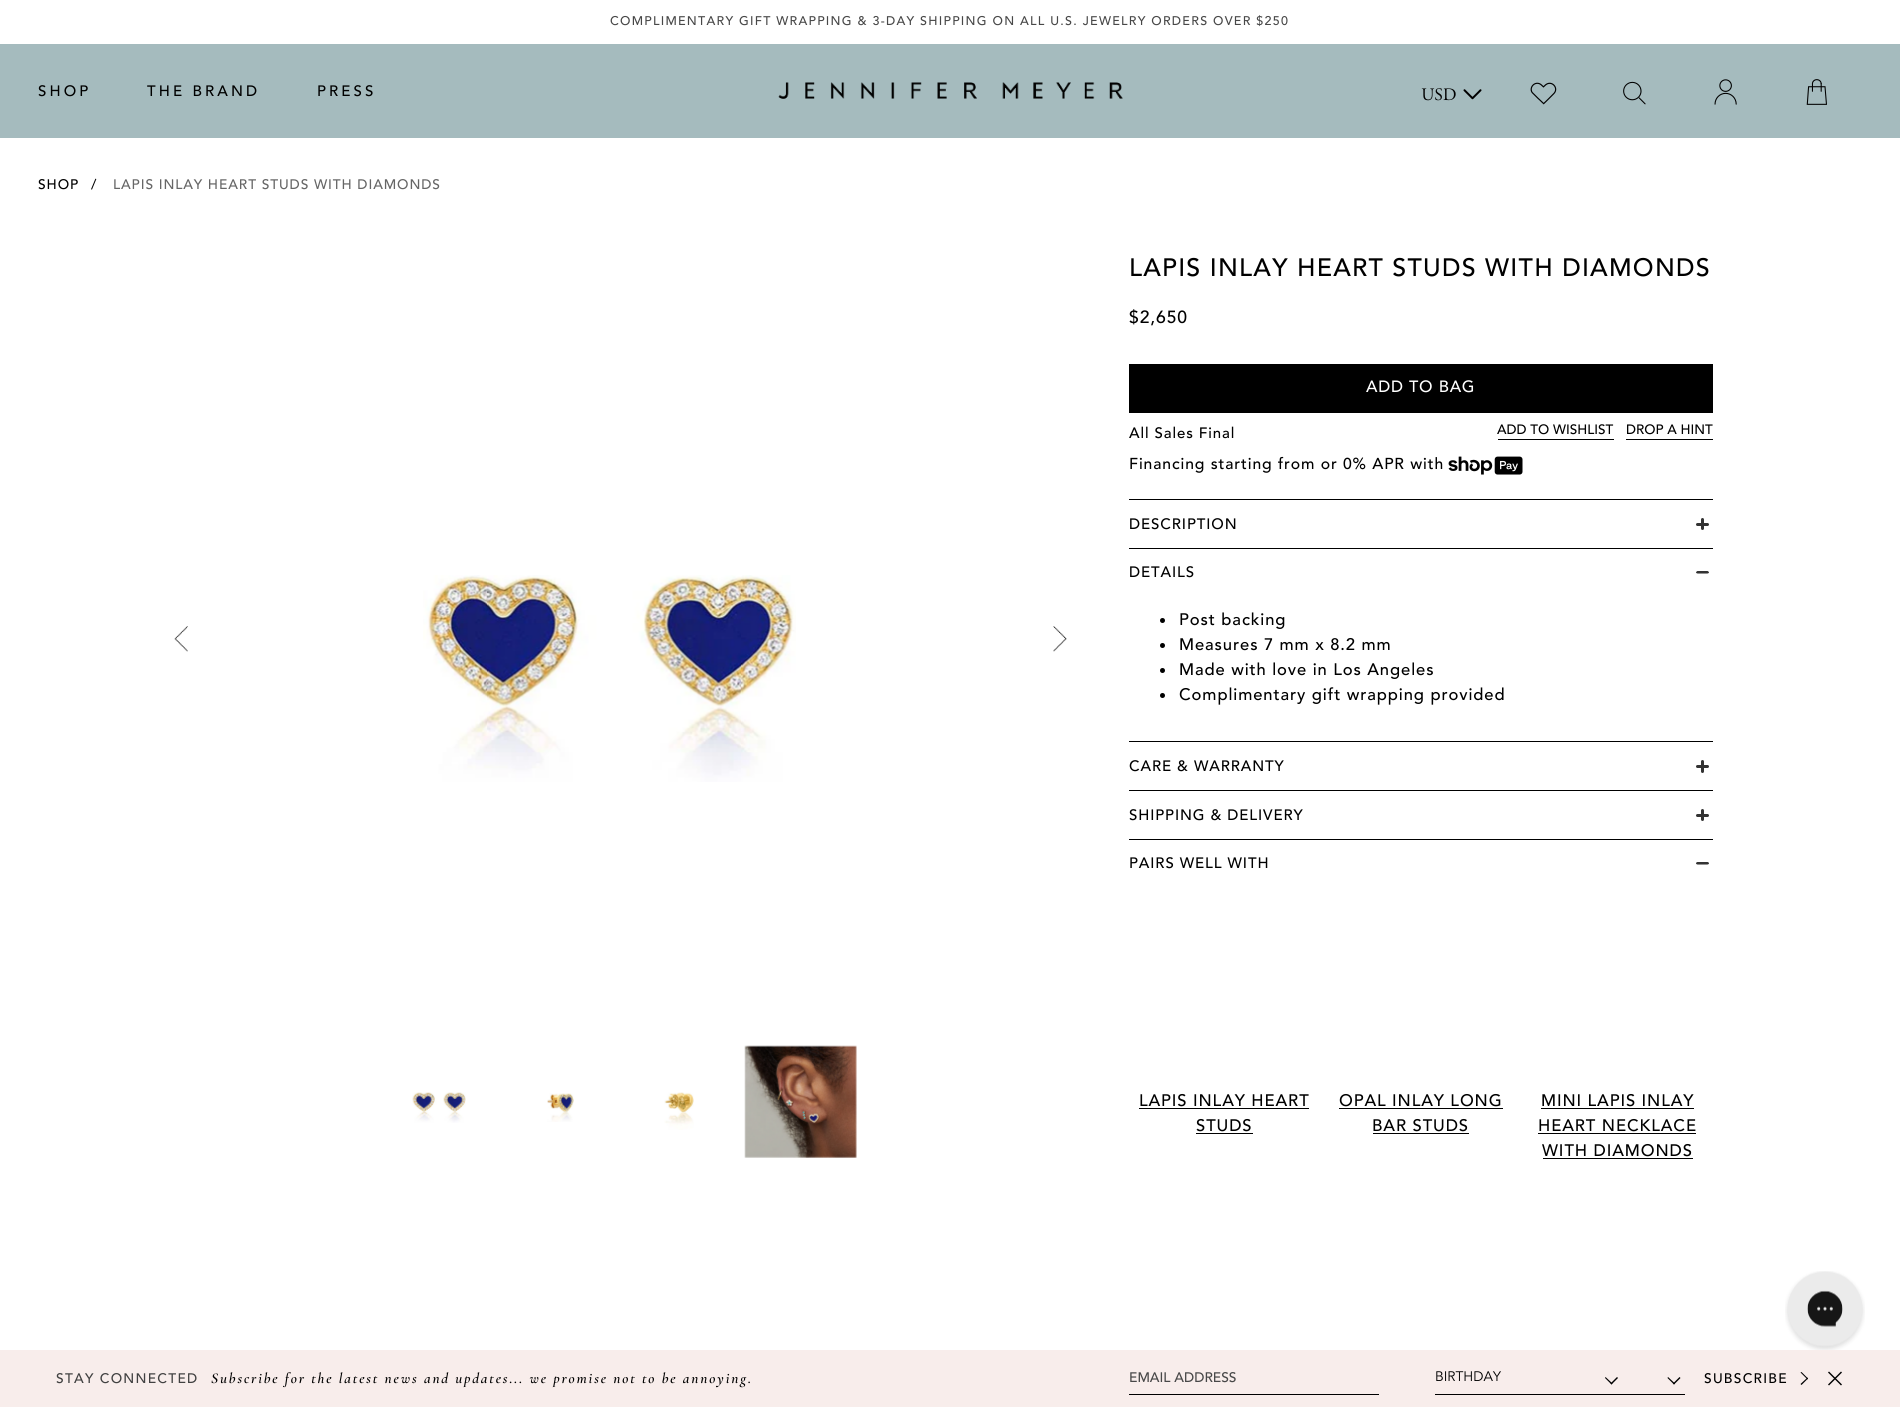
#include <cairo.h>
#include <math.h>
#include <stddef.h>


static void rgb(cairo_t *cr, int r, int g, int b)
{
	cairo_set_source_rgb(cr, r / 255.0, g / 255.0, b / 255.0);
}

static void face(cairo_t *cr, const char *family, double size, int italic, int bold)
{
	cairo_select_font_face(cr, family, italic ? CAIRO_FONT_SLANT_ITALIC : CAIRO_FONT_SLANT_NORMAL,
		bold ? CAIRO_FONT_WEIGHT_BOLD : CAIRO_FONT_WEIGHT_NORMAL);
	cairo_set_font_size(cr, size);
}

static void label(cairo_t *cr, double x, double y, const char *s)
{
	cairo_move_to(cr, x, y);
	cairo_show_text(cr, s);
}

static void tracked(cairo_t *cr, double x, double y, const char *s, double letter, double word)
{
	cairo_move_to(cr, x, y);
	while (*s) {
		char ch[5] = {0};
		int n = 0;
		do ch[n++] = *s++; while ((*s & 0xC0) == 0x80);
		cairo_show_text(cr, ch);
		cairo_rel_move_to(cr, letter + word * (*ch == ' '), 0);
	}
}

static void rect(cairo_t *cr, double x, double y, double w, double h)
{
	cairo_rectangle(cr, x, y, w, h);
	cairo_fill(cr);
}

static void rrect(cairo_t *cr, double x, double y, double w, double h, double r)
{
	cairo_new_sub_path(cr);
	cairo_arc(cr, x + w - r, y + h - r, r, 0, M_PI / 2);
	cairo_arc(cr, x + r, y + h - r, r, M_PI / 2, M_PI);
	cairo_arc(cr, x + r, y + r, r, M_PI, 1.5 * M_PI);
	cairo_arc(cr, x + w - r, y + r, r, 1.5 * M_PI, 2 * M_PI);
	cairo_close_path(cr);
}

static void image(cairo_t *cr, const char *path, double x, double y, double w, double h)
{
	cairo_surface_t *image = cairo_image_surface_create_from_png(path);
	cairo_save(cr);
	cairo_set_source_surface(cr, image, x, y);
	cairo_rectangle(cr, x, y, w, h);
	cairo_fill(cr);
	cairo_restore(cr);
	cairo_surface_destroy(image);
}

static void draw(cairo_t *cr) {
	rgb(cr, 255, 255, 255);
	cairo_paint(cr);
	rgb(cr, 165, 187, 190);
	rect(cr, 0, 44, 1900, 94);
	face(cr, "Avenir Medium", 12.5, 0, 0);
	rgb(cr, 72, 72, 72);
	tracked(cr, 610, 25, "COMPLIMENTARY GIFT WRAPPING & 3-DAY SHIPPING ON ALL U.S. JEWELRY ORDERS OVER $250", 1.25, 0);
	face(cr, "Avenir Medium", 15, 0, 0);
	rgb(cr, 0, 0, 0);
	tracked(cr, 38, 96, "SHOP", 3.1, 0);
	tracked(cr, 147, 96, "THE BRAND", 3.1, 0);
	tracked(cr, 317, 96, "PRESS", 3.1, 0);
	image(cr, "image0.png", 778, 82, 345, 17);
	image(cr, "image1.png", 1421, 88, 35, 13);
	image(cr, "image2.png", 1463, 89, 19, 11);
	image(cr, "image3.png", 1530, 82, 27, 23);
	image(cr, "image4.png", 1623, 81, 23, 24);
	image(cr, "image5.png", 1714, 79, 23, 26);
	image(cr, "image6.png", 1806, 79, 21, 26);
	face(cr, "Avenir Medium", 13.75, 0, 0);
	tracked(cr, 38, 189, "SHOP", 0.9, 0);
	tracked(cr, 91, 189, "/", 0.9, 0);
	rgb(cr, 102, 102, 102);
	tracked(cr, 113, 189, "LAPIS INLAY HEART STUDS WITH DIAMONDS", 0.9, 0);
	image(cr, "image7.png", 423, 575, 373, 207);
	image(cr, "image8.png", 174, 626, 14, 26);
	image(cr, "image9.png", 1053, 626, 14, 26);
	image(cr, "image10.png", 412, 1092, 54, 31);
	image(cr, "image11.png", 547, 1093, 27, 29);
	image(cr, "image12.png", 664, 1092, 30, 38);
	image(cr, "image13.png", 744, 1045, 113, 113);
	face(cr, "Avenir Medium", 25, 0, 0);
	rgb(cr, 0, 0, 0);
	tracked(cr, 1129, 276, "LAPIS INLAY HEART STUDS WITH DIAMONDS", 1.25, 0);
	face(cr, "Avenir Medium", 17.5, 0, 0);
	tracked(cr, 1129, 323, "$2,650", 0.9, 0);
	rect(cr, 1129, 364, 584, 49);
	face(cr, "Avenir Medium", 16.25, 0, 0);
	rgb(cr, 255, 255, 255);
	tracked(cr, 1366, 392, "ADD TO BAG", 0.75, 0);
	face(cr, "Avenir Medium", 15, 0, 0);
	rgb(cr, 0, 0, 0);
	tracked(cr, 1129, 438, "All Sales Final", 0.9, 0);
	face(cr, "Avenir Medium", 13.5, 0, 0);
	label(cr, 1497, 434, "ADD TO WISHLIST");
	rect(cr, 1498, 439, 116, 1);
	label(cr, 1626, 434, "DROP A HINT");
	rect(cr, 1626, 439, 87, 1);
	face(cr, "Avenir Medium", 15.75, 0, 0);
	tracked(cr, 1129, 469, "Financing starting from or 0% APR with", 0.9, 0);
	image(cr, "image14.png", 1448, 456, 75, 19);
	rect(cr, 1129, 499, 584, 1);
	face(cr, "Avenir Medium", 15, 0, 0);
	tracked(cr, 1129, 529, "DESCRIPTION", 0.9, 0);
	rgb(cr, 51, 51, 51);
	rrect(cr, 1701, 518, 3, 12, 1.5);
	cairo_fill(cr);
	rrect(cr, 1696, 523, 13, 3, 1.5);
	cairo_fill(cr);
	rgb(cr, 0, 0, 0);
	rect(cr, 1129, 548, 584, 1);
	tracked(cr, 1129, 577, "DETAILS", 0.9, 0);
	rgb(cr, 51, 51, 51);
	cairo_new_path(cr);
	cairo_move_to(cr, 1707.5, 573.5);
	cairo_line_to(cr, 1697.5, 573.5);
	cairo_curve_to(cr, 1697, 573.5, 1696, 573, 1696, 572.5);
	cairo_curve_to(cr, 1696, 572, 1697, 571, 1697.5, 571);
	cairo_line_to(cr, 1707.5, 571);
	cairo_curve_to(cr, 1708, 571, 1709, 572, 1709, 572.5);
	cairo_curve_to(cr, 1709, 573, 1708, 573.5, 1707.5, 573.5);
	cairo_close_path(cr);
	cairo_fill(cr);
	rgb(cr, 0, 0, 0);
	cairo_arc(cr, 1162.5, 620.5, 2.5, 0, 2 * M_PI);
	cairo_fill(cr);
	face(cr, "Avenir Medium", 16.6, 0, 0);
	tracked(cr, 1179, 625, "Post backing", 0.9, 0);
	cairo_new_path(cr);
	cairo_arc(cr, 1162.5, 645.5, 2.5, 0, 2 * M_PI);
	cairo_fill(cr);
	tracked(cr, 1179, 650, "Measures 7 mm x 8.2 mm", 0.9, 0);
	cairo_new_path(cr);
	cairo_arc(cr, 1162.5, 670.5, 2.5, 0, 2 * M_PI);
	cairo_fill(cr);
	tracked(cr, 1179, 675, "Made with love in Los Angeles", 0.9, 0);
	cairo_new_path(cr);
	cairo_arc(cr, 1162.5, 695.5, 2.5, 0, 2 * M_PI);
	cairo_fill(cr);
	tracked(cr, 1179, 700, "Complimentary gift wrapping provided", 0.9, 0);
	rect(cr, 1129, 741, 584, 1);
	face(cr, "Avenir Medium", 15, 0, 0);
	tracked(cr, 1129, 771, "CARE & WARRANTY", 0.9, 0);
	rgb(cr, 51, 51, 51);
	rrect(cr, 1701, 760, 3, 13, 1.5);
	cairo_fill(cr);
	rrect(cr, 1696, 765, 13, 3, 1.5);
	cairo_fill(cr);
	rgb(cr, 0, 0, 0);
	rect(cr, 1129, 790, 584, 1);
	tracked(cr, 1129, 820, "SHIPPING & DELIVERY", 0.9, 0);
	rgb(cr, 51, 51, 51);
	rrect(cr, 1701, 809, 3, 12, 1.5);
	cairo_fill(cr);
	rrect(cr, 1696, 814, 13, 3, 1.5);
	cairo_fill(cr);
	rgb(cr, 0, 0, 0);
	rect(cr, 1129, 839, 584, 1);
	tracked(cr, 1129, 868, "PAIRS WELL WITH", 0.9, 0);
	rgb(cr, 51, 51, 51);
	cairo_new_path(cr);
	cairo_move_to(cr, 1707.5, 864.5);
	cairo_line_to(cr, 1697.5, 864.5);
	cairo_curve_to(cr, 1697, 864.5, 1696, 864, 1696, 863.5);
	cairo_curve_to(cr, 1696, 862.5, 1697, 862, 1697.5, 862);
	cairo_line_to(cr, 1707.5, 862);
	cairo_curve_to(cr, 1708, 862, 1709, 862.5, 1709, 863.5);
	cairo_curve_to(cr, 1709, 864, 1708, 864.5, 1707.5, 864.5);
	cairo_close_path(cr);
	cairo_fill(cr);
	face(cr, "Avenir Medium", 16.6, 0, 0);
	rgb(cr, 0, 0, 0);
	tracked(cr, 1139, 1106, "LAPIS INLAY HEART", 0.9, 0);
	rect(cr, 1139, 1108, 170, 1);
	tracked(cr, 1196, 1131, "STUDS", 0.9, 0);
	rect(cr, 1196, 1133, 57, 1);
	tracked(cr, 1339, 1106, "OPAL INLAY LONG", 0.9, 0);
	rect(cr, 1339, 1108, 164, 1);
	tracked(cr, 1372, 1131, "BAR STUDS", 0.9, 0);
	rect(cr, 1373, 1133, 96, 1);
	tracked(cr, 1541, 1106, "MINI LAPIS INLAY", 0.9, 0);
	rect(cr, 1541, 1108, 153, 1);
	tracked(cr, 1538, 1131, "HEART NECKLACE", 0.9, 0);
	rect(cr, 1538, 1133, 158, 1);
	tracked(cr, 1542, 1156, "WITH DIAMONDS", 0.9, 0);
	rect(cr, 1543, 1158, 150, 1);
	image(cr, "image15.png", 1785, 1271, 80, 79);
	rgb(cr, 248, 237, 235);
	rect(cr, 0, 1350, 1900, 57);
	face(cr, "Avenir Medium", 13.75, 0, 0);
	rgb(cr, 65, 65, 65);
	tracked(cr, 56, 1383, "STAY CONNECTED", 1.25, 0);
	face(cr, "Cormorant SemiBold", 15, 1, 0);
	rgb(cr, 0, 0, 0);
	tracked(cr, 211, 1383, "Subscribe for the latest news and updates... we promise not to be annoying.", 1.88, 0);
	rect(cr, 1129, 1394, 250, 1);
	face(cr, "Avenir Medium", 13.75, 0, 0);
	rgb(cr, 72, 72, 72);
	label(cr, 1129, 1382, "EMAIL ADDRESS");
	rgb(cr, 0, 0, 0);
	rect(cr, 1435, 1394, 250, 1);
	face(cr, "Avenir", 13.75, 0, 0);
	label(cr, 1435, 1381, "BIRTHDAY");
	cairo_new_path(cr);
	cairo_move_to(cr, 1617, 1377);
	cairo_line_to(cr, 1618, 1378);
	cairo_line_to(cr, 1611.5, 1384.5);
	cairo_line_to(cr, 1610.5, 1383.5);
	cairo_close_path(cr);
	cairo_fill(cr);
	cairo_new_path(cr);
	cairo_move_to(cr, 1605.5, 1377);
	cairo_line_to(cr, 1612.5, 1383.5);
	cairo_line_to(cr, 1611.5, 1384.5);
	cairo_line_to(cr, 1605, 1378);
	cairo_close_path(cr);
	cairo_fill(cr);
	cairo_new_path(cr);
	cairo_move_to(cr, 1679.5, 1377);
	cairo_line_to(cr, 1680.5, 1378);
	cairo_line_to(cr, 1674, 1384.5);
	cairo_line_to(cr, 1673, 1383.5);
	cairo_close_path(cr);
	cairo_fill(cr);
	cairo_new_path(cr);
	cairo_move_to(cr, 1668, 1377);
	cairo_line_to(cr, 1675, 1383.5);
	cairo_line_to(cr, 1674, 1384.5);
	cairo_line_to(cr, 1667.5, 1378);
	cairo_close_path(cr);
	cairo_fill(cr);
	face(cr, "Avenir Medium", 13.75, 0, 0);
	tracked(cr, 1704, 1383, "SUBSCRIBE", 1.25, 0);
	cairo_new_path(cr);
	cairo_move_to(cr, 1800.5, 1372.5);
	cairo_line_to(cr, 1801.5, 1372);
	cairo_line_to(cr, 1808, 1378.5);
	cairo_line_to(cr, 1807.5, 1379.5);
	cairo_close_path(cr);
	cairo_fill(cr);
	cairo_new_path(cr);
	cairo_move_to(cr, 1800.5, 1384);
	cairo_line_to(cr, 1807.5, 1377.5);
	cairo_line_to(cr, 1808, 1378.5);
	cairo_line_to(cr, 1801.5, 1385);
	cairo_close_path(cr);
	cairo_move_to(cr, 1841, 1371.5);
	cairo_line_to(cr, 1842, 1372.5);
	cairo_line_to(cr, 1829, 1385.5);
	cairo_line_to(cr, 1828, 1384.5);
	cairo_close_path(cr);
	cairo_fill(cr);
	cairo_new_path(cr);
	cairo_move_to(cr, 1828, 1372.5);
	cairo_line_to(cr, 1829, 1371.5);
	cairo_line_to(cr, 1842, 1384.5);
	cairo_line_to(cr, 1841, 1385.5);
	cairo_close_path(cr);
	cairo_fill(cr);
}

int main(void) {
	cairo_surface_t *surface = cairo_image_surface_create(CAIRO_FORMAT_RGB24, 1900, 1407);
	cairo_t *cr = cairo_create(surface);
	cairo_font_options_t *options = cairo_font_options_create();
	cairo_font_options_set_hint_metrics(options, CAIRO_HINT_METRICS_OFF);
	cairo_font_options_set_hint_style(options, CAIRO_HINT_STYLE_NONE);
	cairo_set_font_options(cr, options);
	cairo_set_miter_limit(cr, 4);
	draw(cr);
	cairo_surface_write_to_png(surface, "render.png");
	cairo_font_options_destroy(options);
	cairo_destroy(cr);
	cairo_surface_destroy(surface);
	return 0;
}
